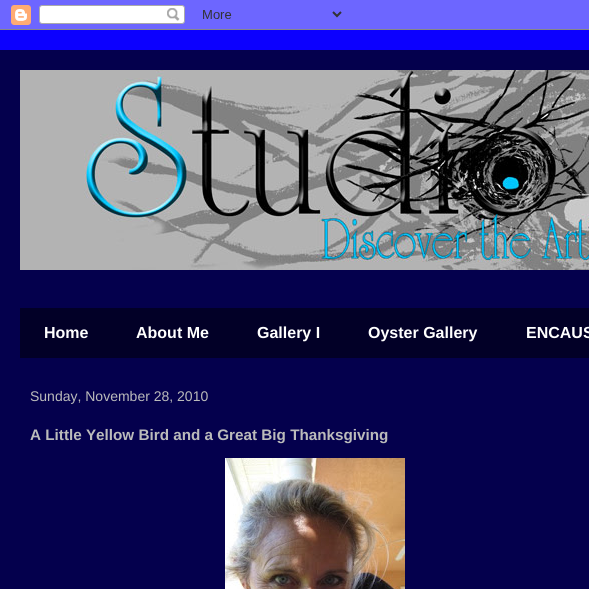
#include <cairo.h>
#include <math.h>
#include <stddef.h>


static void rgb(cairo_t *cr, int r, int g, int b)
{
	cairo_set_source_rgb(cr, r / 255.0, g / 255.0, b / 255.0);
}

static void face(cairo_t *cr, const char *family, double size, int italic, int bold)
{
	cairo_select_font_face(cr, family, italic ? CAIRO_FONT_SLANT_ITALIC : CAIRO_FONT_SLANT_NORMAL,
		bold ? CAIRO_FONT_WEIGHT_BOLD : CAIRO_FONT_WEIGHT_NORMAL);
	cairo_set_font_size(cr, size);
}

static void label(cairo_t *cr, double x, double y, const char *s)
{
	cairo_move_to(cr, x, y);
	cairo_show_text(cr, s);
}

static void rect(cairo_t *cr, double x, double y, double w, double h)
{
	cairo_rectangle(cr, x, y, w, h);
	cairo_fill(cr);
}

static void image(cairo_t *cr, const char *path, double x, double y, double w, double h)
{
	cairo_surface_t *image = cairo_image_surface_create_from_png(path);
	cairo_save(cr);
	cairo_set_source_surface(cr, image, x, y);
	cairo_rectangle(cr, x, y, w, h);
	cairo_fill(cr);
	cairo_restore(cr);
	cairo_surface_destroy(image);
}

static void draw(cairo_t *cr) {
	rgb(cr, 12, 0, 255);
	cairo_paint(cr);
	image(cr, "image0.png", 0, 0, 589, 30);
	rgb(cr, 4, 0, 77);
	rect(cr, 0, 50, 589, 539);
	image(cr, "image1.png", 20, 70, 569, 200);
	rgb(cr, 2, 0, 39);
	rect(cr, 20, 308, 569, 50);
	face(cr, "Liberation Sans", 16, 0, 1);
	rgb(cr, 255, 255, 255);
	label(cr, 44, 338, "Home");
	label(cr, 136, 338, "About Me");
	label(cr, 257, 338, "Gallery I");
	label(cr, 368, 338, "Oyster Gallery");
	label(cr, 526, 338, "ENCAUS");
	face(cr, "Liberation Sans", 14, 0, 0);
	rgb(cr, 187, 187, 187);
	label(cr, 30, 401, "Sunday, November 28, 2010");
	face(cr, "Liberation Sans", 15.25, 0, 1);
	label(cr, 30, 440, "A Little Yellow Bird and a Great Big Thanksgiving");
	image(cr, "image2.png", 225, 458, 180, 131);
}

int main(void) {
	cairo_surface_t *surface = cairo_image_surface_create(CAIRO_FORMAT_RGB24, 589, 589);
	cairo_t *cr = cairo_create(surface);
	cairo_font_options_t *options = cairo_font_options_create();
	cairo_font_options_set_hint_metrics(options, CAIRO_HINT_METRICS_OFF);
	cairo_font_options_set_hint_style(options, CAIRO_HINT_STYLE_NONE);
	cairo_set_font_options(cr, options);
	cairo_set_miter_limit(cr, 4);
	draw(cr);
	cairo_surface_write_to_png(surface, "render.png");
	cairo_font_options_destroy(options);
	cairo_destroy(cr);
	cairo_surface_destroy(surface);
	return 0;
}
